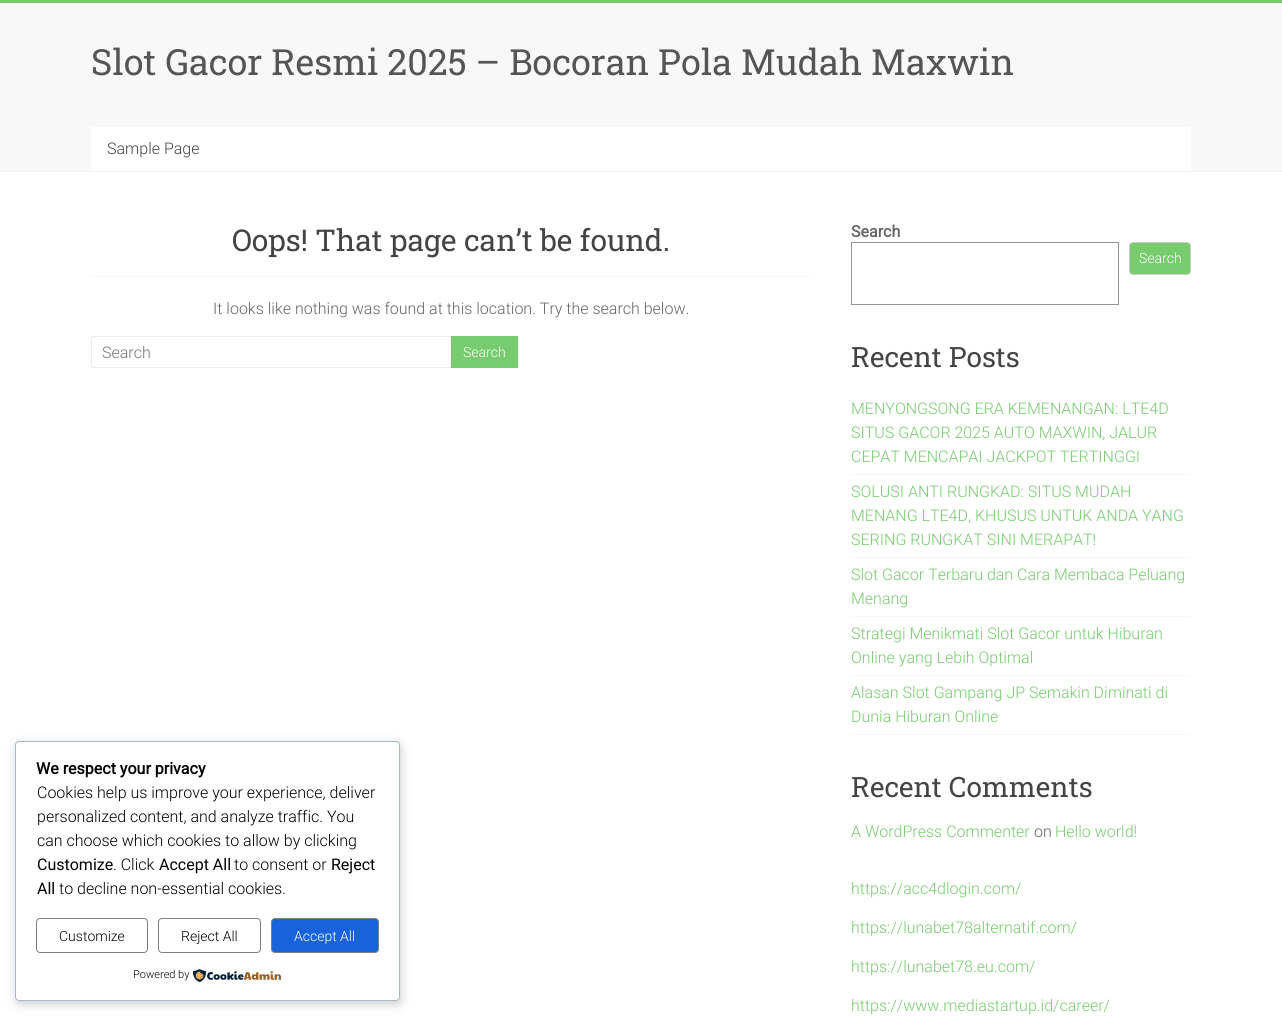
#include <cairo.h>
#include <math.h>
#include <stddef.h>


static void rgb(cairo_t *cr, int r, int g, int b)
{
	cairo_set_source_rgb(cr, r / 255.0, g / 255.0, b / 255.0);
}

static void face(cairo_t *cr, const char *family, double size, int italic, int bold)
{
	cairo_select_font_face(cr, family, italic ? CAIRO_FONT_SLANT_ITALIC : CAIRO_FONT_SLANT_NORMAL,
		bold ? CAIRO_FONT_WEIGHT_BOLD : CAIRO_FONT_WEIGHT_NORMAL);
	cairo_set_font_size(cr, size);
}

static void label(cairo_t *cr, double x, double y, const char *s)
{
	cairo_move_to(cr, x, y);
	cairo_show_text(cr, s);
}

static void rect(cairo_t *cr, double x, double y, double w, double h)
{
	cairo_rectangle(cr, x, y, w, h);
	cairo_fill(cr);
}

static void rrect(cairo_t *cr, double x, double y, double w, double h, double r)
{
	cairo_new_sub_path(cr);
	cairo_arc(cr, x + w - r, y + h - r, r, 0, M_PI / 2);
	cairo_arc(cr, x + r, y + h - r, r, M_PI / 2, M_PI);
	cairo_arc(cr, x + r, y + r, r, M_PI, 1.5 * M_PI);
	cairo_arc(cr, x + w - r, y + r, r, 1.5 * M_PI, 2 * M_PI);
	cairo_close_path(cr);
}

static void soft_shadow(cairo_t *cr, double x, double y, double w, double h, double r, double blur, double alpha)
{
	cairo_push_group_with_content(cr, CAIRO_CONTENT_ALPHA);
	cairo_set_operator(cr, CAIRO_OPERATOR_SOURCE);
	for (int i = 15; i >= -15 && fmin(w, h) + blur * i / 3 > 0; i -= 2) {
		double e = blur * i / 6;
		cairo_set_source_rgba(cr, 0, 0, 0, alpha * erfc((i - 1) / 8.5) / 2);
		rrect(cr, x - e, y - e, w + 2 * e, h + 2 * e, fmax(0, fmin(r + e + blur * .6, fmin(w, h) / 2 + e)));
		cairo_fill(cr);
	}
	cairo_pattern_t *soft = cairo_pop_group(cr);
	cairo_mask(cr, soft);
	cairo_pattern_destroy(soft);
}

static void image(cairo_t *cr, const char *path, double x, double y, double w, double h)
{
	cairo_surface_t *image = cairo_image_surface_create_from_png(path);
	cairo_save(cr);
	cairo_set_source_surface(cr, image, x, y);
	cairo_rectangle(cr, x, y, w, h);
	cairo_fill(cr);
	cairo_restore(cr);
	cairo_surface_destroy(image);
}

static void draw(cairo_t *cr) {
	rgb(cr, 255, 255, 255);
	cairo_paint(cr);
	rgb(cr, 119, 204, 109);
	rect(cr, 0, 0, 1282, 3);
	rgb(cr, 248, 248, 248);
	rect(cr, 0, 3, 1282, 168);
	rgb(cr, 242, 242, 242);
	rect(cr, 0, 171, 1282, 1);
	face(cr, "Roboto Slab", 36, 0, 0);
	rgb(cr, 85, 85, 85);
	label(cr, 91, 75, "Slot Gacor Resmi 2025 – Bocoran Pola Mudah Maxwin");
	rgb(cr, 255, 255, 255);
	rect(cr, 91, 127, 1100, 44);
	face(cr, "Roboto Light", 16, 0, 0);
	rgb(cr, 68, 68, 68);
	label(cr, 107, 154, "Sample Page");
	rgb(cr, 248, 248, 248);
	rect(cr, 91, 276, 720, 1);
	face(cr, "Roboto Slab", 30, 0, 0);
	rgb(cr, 68, 68, 68);
	label(cr, 232, 251, "Oops! That page can’t be found.");
	face(cr, "Roboto Light", 16, 0, 0);
	rgb(cr, 102, 102, 102);
	label(cr, 213, 314, "It looks like nothing was found at this location. Try the search below.");
	rgb(cr, 234, 234, 234);
	cairo_set_fill_rule(cr, CAIRO_FILL_RULE_EVEN_ODD);
	cairo_new_path(cr);
	cairo_move_to(cr, 94, 336);
	cairo_line_to(cr, 451, 336);
	cairo_line_to(cr, 451, 368);
	cairo_line_to(cr, 94, 368);
	cairo_curve_to(cr, 92, 368, 91, 367, 91, 365);
	cairo_line_to(cr, 91, 339);
	cairo_curve_to(cr, 91, 337, 92, 336, 94, 336);
	cairo_close_path(cr);
	cairo_move_to(cr, 94, 337);
	cairo_line_to(cr, 451, 337);
	cairo_line_to(cr, 451, 367);
	cairo_line_to(cr, 94, 367);
	cairo_curve_to(cr, 93, 367, 92, 366, 92, 365);
	cairo_line_to(cr, 92, 339);
	cairo_curve_to(cr, 92, 338, 93, 337, 94, 337);
	cairo_close_path(cr);
	cairo_fill(cr);
	rgb(cr, 117, 117, 117);
	label(cr, 102, 358, "Search");
	rgb(cr, 119, 204, 109);
	rect(cr, 451, 336, 67, 32);
	face(cr, "Roboto Light", 14, 0, 0);
	rgb(cr, 255, 255, 255);
	label(cr, 463, 357, "Search");
	face(cr, "Roboto", 16, 0, 1);
	rgb(cr, 102, 102, 102);
	label(cr, 851, 237, "Search");
	cairo_rectangle(cr, 851.5, 242.5, 267, 62);
	rgb(cr, 148, 148, 148);
	cairo_set_line_width(cr, 1);
	cairo_stroke(cr);
	rgb(cr, 119, 204, 109);
	rrect(cr, 1129.5, 242.5, 61, 32, 3.5);
	cairo_fill_preserve(cr);
	rgb(cr, 204, 204, 204);
	cairo_stroke(cr);
	face(cr, "Roboto Light", 14, 0, 0);
	rgb(cr, 255, 255, 255);
	label(cr, 1139, 263, "Search");
	face(cr, "Roboto Slab", 28, 0, 0);
	rgb(cr, 68, 68, 68);
	label(cr, 851, 367, "Recent Posts");
	rgb(cr, 248, 248, 248);
	rect(cr, 851, 474, 340, 1);
	face(cr, "Roboto Light", 16, 0, 0);
	rgb(cr, 119, 204, 109);
	label(cr, 851, 414, "MENYONGSONG ERA KEMENANGAN: LTE4D");
	label(cr, 851, 438, "SITUS GACOR 2025 AUTO MAXWIN, JALUR");
	label(cr, 851, 462, "CEPAT MENCAPAI JACKPOT TERTINGGI");
	rgb(cr, 248, 248, 248);
	rect(cr, 851, 557, 340, 1);
	rgb(cr, 119, 204, 109);
	label(cr, 851, 497, "SOLUSI ANTI RUNGKAD: SITUS MUDAH");
	label(cr, 851, 521, "MENANG LTE4D, KHUSUS UNTUK ANDA YANG");
	label(cr, 851, 545, "SERING RUNGKAT SINI MERAPAT!");
	rgb(cr, 248, 248, 248);
	rect(cr, 851, 616, 340, 1);
	rgb(cr, 119, 204, 109);
	label(cr, 851, 580, "Slot Gacor Terbaru dan Cara Membaca Peluang");
	label(cr, 851, 604, "Menang");
	rgb(cr, 248, 248, 248);
	rect(cr, 851, 675, 340, 1);
	rgb(cr, 119, 204, 109);
	label(cr, 851, 639, "Strategi Menikmati Slot Gacor untuk Hiburan");
	label(cr, 851, 663, "Online yang Lebih Optimal");
	rgb(cr, 248, 248, 248);
	rect(cr, 851, 734, 340, 1);
	rgb(cr, 119, 204, 109);
	label(cr, 851, 698, "Alasan Slot Gampang JP Semakin Diminati di");
	label(cr, 851, 722, "Dunia Hiburan Online");
	face(cr, "Roboto Slab", 28, 0, 0);
	rgb(cr, 68, 68, 68);
	label(cr, 851, 797, "Recent Comments");
	face(cr, "Roboto Light", 16, 0, 0);
	rgb(cr, 119, 204, 109);
	label(cr, 851, 837, "A WordPress Commenter");
	rgb(cr, 102, 102, 102);
	label(cr, 1034, 837, "on");
	rgb(cr, 119, 204, 109);
	label(cr, 1055, 837, "Hello world!");
	label(cr, 851, 894, "https://acc4dlogin.com/");
	label(cr, 851, 933, "https://lunabet78alternatif.com/");
	label(cr, 851, 972, "https://lunabet78.eu.com/");
	label(cr, 851, 1011, "https://www.mediastartup.id/career/");
	rgb(cr, 0, 0, 0);
	soft_shadow(cr, 16, 744, 385, 260, 4, 5, 0.2);
	rgb(cr, 255, 255, 255);
	rrect(cr, 15.5, 741.5, 384, 259, 3.5);
	cairo_fill_preserve(cr);
	rgb(cr, 171, 184, 195);
	cairo_stroke(cr);
	face(cr, "Roboto", 16, 0, 1);
	rgb(cr, 0, 0, 0);
	label(cr, 36, 774, "We respect your privacy");
	face(cr, "Roboto Light", 16, 0, 0);
	label(cr, 37, 798, "Cookies help us improve your experience, deliver");
	label(cr, 37, 822, "personalized content, and analyze traffic. You");
	label(cr, 37, 846, "can choose which cookies to allow by clicking");
	face(cr, "Roboto", 16, 0, 0);
	label(cr, 37, 870, "Customize");
	face(cr, "Roboto Light", 16, 0, 0);
	label(cr, 113, 870, ". Click");
	face(cr, "Roboto", 16, 0, 0);
	label(cr, 159, 870, "Accept All");
	face(cr, "Roboto Light", 16, 0, 0);
	label(cr, 234, 870, "to consent or");
	face(cr, "Roboto", 16, 0, 0);
	label(cr, 331, 870, "Reject");
	label(cr, 37, 894, "All");
	face(cr, "Roboto Light", 16, 0, 0);
	label(cr, 59, 894, "to decline non-essential cookies.");
	rrect(cr, 36.5, 918.5, 111, 34, 3.5);
	rgb(cr, 128, 128, 128);
	cairo_stroke(cr);
	face(cr, "Roboto Light", 14, 0, 0);
	rgb(cr, 0, 0, 0);
	label(cr, 59, 941, "Customize");
	rrect(cr, 158.5, 918.5, 102, 34, 3.5);
	rgb(cr, 128, 128, 128);
	cairo_stroke(cr);
	rgb(cr, 0, 0, 0);
	label(cr, 181, 941, "Reject All");
	rgb(cr, 24, 99, 220);
	rrect(cr, 271.5, 918.5, 107, 34, 3.5);
	cairo_fill_preserve(cr);
	rgb(cr, 128, 128, 128);
	cairo_stroke(cr);
	rgb(cr, 255, 255, 255);
	label(cr, 294, 941, "Accept All");
	face(cr, "Roboto Light", 11, 0, 0);
	rgb(cr, 0, 0, 0);
	label(cr, 133, 978, "Powered by");
	image(cr, "image0.png", 193, 969, 88, 14);
}

int main(void) {
	cairo_surface_t *surface = cairo_image_surface_create(CAIRO_FORMAT_RGB24, 1282, 1021);
	cairo_t *cr = cairo_create(surface);
	cairo_font_options_t *options = cairo_font_options_create();
	cairo_font_options_set_hint_metrics(options, CAIRO_HINT_METRICS_OFF);
	cairo_font_options_set_hint_style(options, CAIRO_HINT_STYLE_NONE);
	cairo_set_font_options(cr, options);
	cairo_set_miter_limit(cr, 4);
	draw(cr);
	cairo_surface_write_to_png(surface, "render.png");
	cairo_font_options_destroy(options);
	cairo_destroy(cr);
	cairo_surface_destroy(surface);
	return 0;
}
